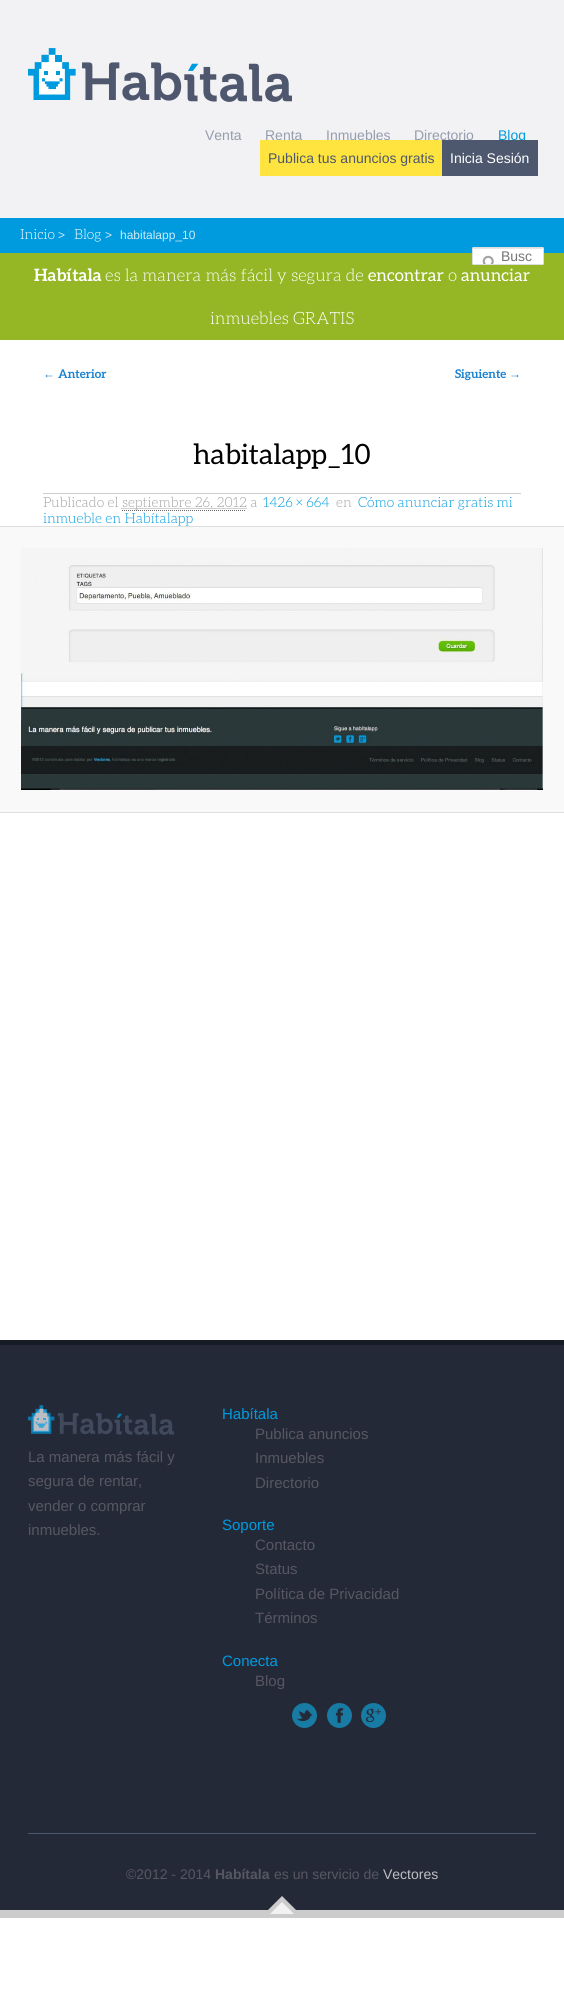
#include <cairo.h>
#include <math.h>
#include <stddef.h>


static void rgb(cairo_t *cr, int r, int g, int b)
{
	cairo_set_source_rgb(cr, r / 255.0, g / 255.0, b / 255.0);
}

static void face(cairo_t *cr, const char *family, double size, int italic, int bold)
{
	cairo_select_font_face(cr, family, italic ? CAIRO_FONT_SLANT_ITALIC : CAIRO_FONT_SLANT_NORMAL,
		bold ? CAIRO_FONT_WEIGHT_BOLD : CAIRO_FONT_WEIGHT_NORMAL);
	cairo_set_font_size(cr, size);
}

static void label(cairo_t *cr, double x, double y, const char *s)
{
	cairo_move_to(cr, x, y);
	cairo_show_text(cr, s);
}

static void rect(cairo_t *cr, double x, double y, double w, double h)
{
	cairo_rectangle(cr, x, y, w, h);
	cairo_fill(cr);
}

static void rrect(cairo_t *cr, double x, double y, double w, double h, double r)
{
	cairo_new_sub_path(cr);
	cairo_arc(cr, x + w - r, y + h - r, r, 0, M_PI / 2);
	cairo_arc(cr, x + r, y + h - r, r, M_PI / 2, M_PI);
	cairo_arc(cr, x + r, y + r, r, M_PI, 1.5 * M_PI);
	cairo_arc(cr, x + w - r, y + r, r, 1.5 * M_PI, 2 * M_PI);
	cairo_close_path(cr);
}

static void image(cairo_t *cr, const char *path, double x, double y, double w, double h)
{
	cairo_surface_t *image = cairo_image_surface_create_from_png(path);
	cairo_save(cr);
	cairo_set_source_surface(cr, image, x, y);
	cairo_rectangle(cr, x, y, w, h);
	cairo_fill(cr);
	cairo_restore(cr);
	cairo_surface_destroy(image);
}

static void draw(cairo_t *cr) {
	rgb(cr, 255, 255, 255);
	cairo_paint(cr);
	rgb(cr, 242, 242, 244);
	rect(cr, 0, 0, 564, 218);
	image(cr, "image0.png", 28, 48, 264, 54);
	face(cr, "Liberation Sans", 14, 0, 0);
	rgb(cr, 149, 156, 173);
	label(cr, 205, 140, "Venta");
	label(cr, 265, 140, "Renta");
	label(cr, 326, 140, "Inmuebles");
	label(cr, 414, 140, "Directorio");
	rgb(cr, 0, 155, 222);
	label(cr, 498, 140, "Blog");
	rgb(cr, 255, 228, 63);
	rect(cr, 260, 140, 182, 36);
	rgb(cr, 77, 87, 109);
	label(cr, 268, 163, "Publica tus anuncios gratis");
	rect(cr, 442, 140, 96, 36);
	rgb(cr, 255, 255, 255);
	label(cr, 450, 163, "Inicia Sesión");
	rgb(cr, 0, 155, 222);
	rect(cr, 0, 218, 564, 35);
	face(cr, "Aleo Light", 14, 0, 0);
	rgb(cr, 255, 255, 255);
	label(cr, 20, 239, "Inicio");
	face(cr, "Liberation Sans", 12, 0, 0);
	rgb(cr, 204, 235, 248);
	label(cr, 58, 239, ">");
	face(cr, "Aleo Light", 14, 0, 0);
	rgb(cr, 255, 255, 255);
	label(cr, 74, 239, "Blog");
	face(cr, "Liberation Sans", 12, 0, 0);
	rgb(cr, 204, 235, 248);
	label(cr, 105, 239, ">");
	label(cr, 120, 239, "habitalapp_10");
	rgb(cr, 149, 183, 37);
	rect(cr, 0, 253, 564, 87);
	rgb(cr, 255, 255, 255);
	rrect(cr, 472, 247, 72, 18, 2);
	cairo_fill(cr);
	image(cr, "image1.png", 482, 255, 12, 9);
	rgb(cr, 230, 230, 230);
	cairo_new_path(cr);
	cairo_move_to(cr, 474, 249);
	cairo_line_to(cr, 542, 249);
	cairo_curve_to(cr, 543, 249, 543, 249, 543, 250);
	cairo_curve_to(cr, 543, 245, 534, 248, 531, 248);
	cairo_line_to(cr, 474, 248);
	cairo_curve_to(cr, 473, 248, 473, 249, 473, 250);
	cairo_curve_to(cr, 473, 249, 473, 249, 474, 249);
	cairo_close_path(cr);
	cairo_fill(cr);
	rrect(cr, 472.5, 247.5, 71, 17, 1.5);
	rgb(cr, 221, 221, 221);
	cairo_set_line_width(cr, 1);
	cairo_stroke(cr);
	face(cr, "Liberation Sans", 14, 0, 0);
	rgb(cr, 117, 117, 117);
	label(cr, 501, 261, "Busc");
	face(cr, "Aleo", 17, 0, 1);
	rgb(cr, 255, 255, 255);
	label(cr, 34, 281, "Habítala");
	face(cr, "Aleo Light", 17, 0, 0);
	label(cr, 105, 281, "es la manera más fácil y segura de");
	face(cr, "Aleo", 17, 0, 0);
	label(cr, 368, 281, "encontrar");
	face(cr, "Aleo Light", 17, 0, 0);
	label(cr, 448, 281, "o");
	face(cr, "Aleo", 17, 0, 0);
	label(cr, 461, 281, "anunciar");
	face(cr, "Aleo Light", 17, 0, 0);
	label(cr, 210, 324, "inmuebles GRATIS");
	face(cr, "Liberation Serif", 12, 0, 1);
	rgb(cr, 25, 130, 209);
	label(cr, 43, 378, "←");
	face(cr, "Aleo", 12, 0, 1);
	label(cr, 58, 378, "Anterior");
	label(cr, 455, 378, "Siguiente");
	face(cr, "Liberation Serif", 12, 0, 1);
	label(cr, 509, 378, "→");
	rgb(cr, 204, 204, 204);
	rect(cr, 43, 493, 478, 1);
	face(cr, "Aleo", 28, 0, 0);
	rgb(cr, 0, 0, 0);
	label(cr, 193, 464, "habitalapp_10");
	face(cr, "Aleo Light", 14, 0, 0);
	rgb(cr, 161, 161, 161);
	label(cr, 43, 507, "Publicado el");
	cairo_new_path(cr);
	cairo_move_to(cr, 121.5, 508.5);
	cairo_line_to(cr, 246.5, 508.5);
	cairo_set_dash(cr, (double[]){1, 1}, 2, 0);
	cairo_stroke(cr);
	label(cr, 122, 507, "septiembre 26, 2012 a");
	cairo_new_path(cr);
	cairo_move_to(cr, 122, 510.5);
	cairo_line_to(cr, 246, 510.5);
	rgb(cr, 102, 102, 102);
	cairo_stroke(cr);
	rgb(cr, 0, 155, 222);
	label(cr, 263, 507, "1426 × 664");
	rgb(cr, 161, 161, 161);
	label(cr, 336, 507, "en");
	rgb(cr, 0, 155, 222);
	label(cr, 358, 507, "Cómo anunciar gratis mi");
	label(cr, 43, 523, "inmueble en Habítalapp");
	rgb(cr, 249, 249, 249);
	rect(cr, 0, 527, 564, 285);
	rgb(cr, 221, 221, 221);
	rect(cr, 0, 526, 564, 1);
	rect(cr, 0, 812, 564, 1);
	image(cr, "image2.png", 21, 548, 522, 242);
	rgb(cr, 35, 41, 55);
	rect(cr, 0, 1345, 564, 565);
	rgb(cr, 23, 27, 37);
	rect(cr, 0, 1340, 564, 5);
	image(cr, "image3.png", 28, 1405, 146, 30);
	face(cr, "Liberation Sans", 15, 0, 0);
	rgb(cr, 88, 86, 98);
	label(cr, 28, 1462, "La manera más fácil y");
	label(cr, 28, 1486, "segura de rentar,");
	label(cr, 28, 1511, "vender o comprar");
	label(cr, 28, 1535, "inmuebles.");
	rgb(cr, 0, 155, 222);
	label(cr, 222, 1419, "Habítala");
	rgb(cr, 88, 86, 98);
	label(cr, 255, 1439, "Publica anuncios");
	label(cr, 255, 1463, "Inmuebles");
	label(cr, 255, 1488, "Directorio");
	rgb(cr, 0, 155, 222);
	label(cr, 222, 1530, "Soporte");
	rgb(cr, 88, 86, 98);
	label(cr, 255, 1550, "Contacto");
	label(cr, 255, 1574, "Status");
	label(cr, 255, 1599, "Política de Privacidad");
	label(cr, 255, 1623, "Términos");
	rgb(cr, 0, 155, 222);
	label(cr, 222, 1666, "Conecta");
	rgb(cr, 88, 86, 98);
	label(cr, 255, 1686, "Blog");
	image(cr, "image4.png", 292, 1703, 25, 25);
	image(cr, "image5.png", 327, 1703, 25, 25);
	image(cr, "image6.png", 361, 1703, 25, 25);
	rgb(cr, 77, 87, 109);
	rect(cr, 28, 1833, 508, 1);
	face(cr, "Liberation Sans", 14, 0, 0);
	rgb(cr, 88, 86, 98);
	label(cr, 126, 1879, "©2012 - 2014");
	face(cr, "Liberation Sans", 14, 0, 1);
	label(cr, 215, 1879, "Habítala");
	face(cr, "Liberation Sans", 14, 0, 0);
	label(cr, 274, 1879, "es un servicio de");
	rgb(cr, 189, 191, 195);
	label(cr, 383, 1879, "Vectores");
	rgb(cr, 204, 204, 204);
	rect(cr, 0, 1910, 564, 8);
	cairo_new_path(cr);
	cairo_move_to(cr, 300, 1914);
	cairo_line_to(cr, 264, 1914);
	cairo_line_to(cr, 282, 1896);
	cairo_close_path(cr);
	cairo_fill(cr);
	rgb(cr, 242, 242, 242);
	cairo_new_path(cr);
	cairo_move_to(cr, 294, 1914);
	cairo_line_to(cr, 270, 1914);
	cairo_line_to(cr, 282, 1902);
	cairo_close_path(cr);
	cairo_fill(cr);
}

int main(void) {
	cairo_surface_t *surface = cairo_image_surface_create(CAIRO_FORMAT_RGB24, 564, 2008);
	cairo_t *cr = cairo_create(surface);
	cairo_font_options_t *options = cairo_font_options_create();
	cairo_font_options_set_hint_metrics(options, CAIRO_HINT_METRICS_OFF);
	cairo_font_options_set_hint_style(options, CAIRO_HINT_STYLE_NONE);
	cairo_set_font_options(cr, options);
	cairo_set_miter_limit(cr, 4);
	draw(cr);
	cairo_surface_write_to_png(surface, "render.png");
	cairo_font_options_destroy(options);
	cairo_destroy(cr);
	cairo_surface_destroy(surface);
	return 0;
}
